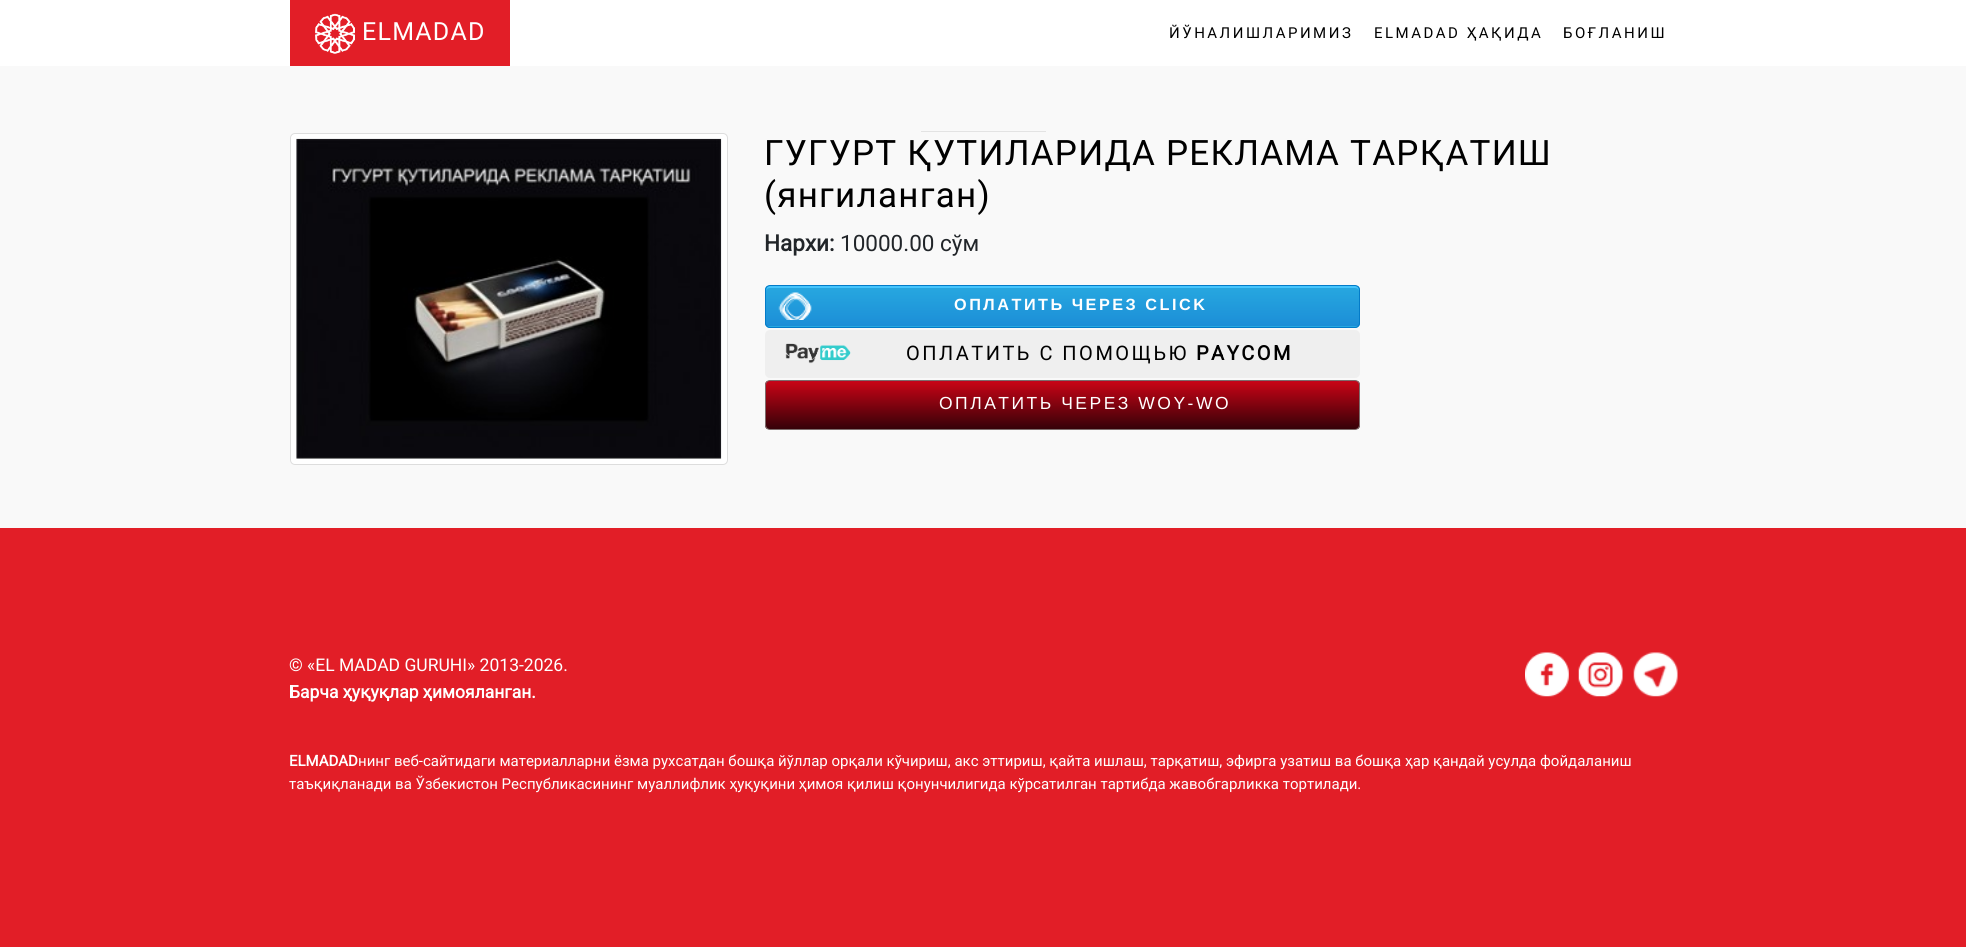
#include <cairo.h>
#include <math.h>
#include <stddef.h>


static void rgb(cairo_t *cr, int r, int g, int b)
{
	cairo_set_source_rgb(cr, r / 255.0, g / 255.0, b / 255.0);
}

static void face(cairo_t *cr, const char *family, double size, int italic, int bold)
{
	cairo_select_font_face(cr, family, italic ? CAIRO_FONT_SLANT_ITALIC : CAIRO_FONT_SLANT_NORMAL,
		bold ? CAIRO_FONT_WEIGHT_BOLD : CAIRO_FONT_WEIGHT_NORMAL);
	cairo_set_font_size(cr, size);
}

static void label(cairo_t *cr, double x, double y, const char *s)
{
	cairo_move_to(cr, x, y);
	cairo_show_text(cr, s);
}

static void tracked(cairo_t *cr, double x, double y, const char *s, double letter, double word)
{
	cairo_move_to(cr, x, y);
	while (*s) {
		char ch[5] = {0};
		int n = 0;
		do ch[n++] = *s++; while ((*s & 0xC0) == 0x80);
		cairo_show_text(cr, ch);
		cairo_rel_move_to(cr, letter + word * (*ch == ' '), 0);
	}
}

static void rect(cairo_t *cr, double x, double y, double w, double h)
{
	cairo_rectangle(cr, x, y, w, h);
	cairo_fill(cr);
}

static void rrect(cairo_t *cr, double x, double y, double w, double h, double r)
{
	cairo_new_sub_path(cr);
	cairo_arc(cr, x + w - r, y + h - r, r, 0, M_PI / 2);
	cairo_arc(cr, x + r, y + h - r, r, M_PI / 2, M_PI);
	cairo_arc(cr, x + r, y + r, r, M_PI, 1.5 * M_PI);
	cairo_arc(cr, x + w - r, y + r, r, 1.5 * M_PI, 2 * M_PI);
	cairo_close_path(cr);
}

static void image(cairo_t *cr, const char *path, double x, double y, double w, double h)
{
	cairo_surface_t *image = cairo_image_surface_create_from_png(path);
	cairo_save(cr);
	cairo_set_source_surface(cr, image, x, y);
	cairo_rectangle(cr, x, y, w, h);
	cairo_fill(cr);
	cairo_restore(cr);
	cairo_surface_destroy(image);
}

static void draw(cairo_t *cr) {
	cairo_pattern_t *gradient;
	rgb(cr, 226, 30, 39);
	cairo_paint(cr);
	rgb(cr, 255, 255, 255);
	rect(cr, 0, 0, 1966, 66);
	rgb(cr, 226, 30, 39);
	rect(cr, 290, 0, 220, 66);
	image(cr, "image0.png", 315, 13, 40, 41);
	face(cr, "Roboto", 25, 0, 0);
	rgb(cr, 255, 255, 255);
	tracked(cr, 362, 40, "ELMADAD", 1.25, 0);
	face(cr, "Roboto", 15, 0, 0);
	rgb(cr, 0, 0, 0);
	tracked(cr, 1169, 38, "ЙЎНАЛИШЛАРИМИЗ", 2.5, 0);
	tracked(cr, 1374, 38, "ELMADAD ҲАҚИДА", 2.5, 0);
	tracked(cr, 1563, 38, "БОҒЛАНИШ", 2.5, 0);
	rgb(cr, 249, 249, 249);
	rect(cr, 0, 66, 1966, 462);
	rgb(cr, 227, 227, 227);
	rect(cr, 921, 131, 125, 1);
	rgb(cr, 255, 255, 255);
	rrect(cr, 290.5, 133.5, 437, 331, 4.5);
	cairo_fill_preserve(cr);
	rgb(cr, 221, 221, 221);
	cairo_set_line_width(cr, 1);
	cairo_stroke(cr);
	image(cr, "image1.png", 296, 138, 426, 321);
	face(cr, "Roboto", 35, 0, 0);
	rgb(cr, 0, 0, 0);
	tracked(cr, 764, 165, "ГУГУРТ ҚУТИЛАРИДА РЕКЛАМА ТАРҚАТИШ", 1.25, 0);
	tracked(cr, 764, 207, "(янгиланган)", 1.25, 0);
	face(cr, "Roboto", 22.5, 0, 1);
	rgb(cr, 33, 37, 41);
	label(cr, 764, 251, "Нархи:");
	face(cr, "Roboto", 22.5, 0, 0);
	label(cr, 840, 251, "10000.00 сўм");
	cairo_save(cr);
	rrect(cr, 765, 285, 595, 43, 5);
	cairo_clip(cr);
	gradient = cairo_pattern_create_linear(1063, 286, 1063, 326);
	cairo_pattern_add_color_stop_rgba(gradient, 0, 0.153, 0.659, 0.878, 1);
	cairo_pattern_add_color_stop_rgba(gradient, 1, 0.11, 0.557, 0.843, 1);
	cairo_set_source(cr, gradient);
	cairo_pattern_destroy(gradient);
	rect(cr, 765, 286, 595, 40);
	gradient = cairo_pattern_create_linear(1063, 326, 1063, 366);
	cairo_pattern_add_color_stop_rgba(gradient, 0, 0.153, 0.659, 0.878, 1);
	cairo_pattern_add_color_stop_rgba(gradient, 1, 0.11, 0.557, 0.843, 1);
	cairo_set_source(cr, gradient);
	cairo_pattern_destroy(gradient);
	rect(cr, 765, 326, 595, 2);
	cairo_restore(cr);
	rgb(cr, 69, 196, 252);
	cairo_new_path(cr);
	cairo_move_to(cr, 770, 288);
	cairo_line_to(cr, 1355, 288);
	cairo_curve_to(cr, 1357, 288, 1359, 289, 1359, 291);
	cairo_line_to(cr, 1359, 290);
	cairo_curve_to(cr, 1359, 288, 1357, 286, 1355, 286);
	cairo_line_to(cr, 770, 286);
	cairo_curve_to(cr, 768, 286, 766, 288, 766, 290);
	cairo_line_to(cr, 766, 291);
	cairo_curve_to(cr, 766, 289, 768, 288, 770, 288);
	cairo_close_path(cr);
	cairo_fill(cr);
	rrect(cr, 765.5, 285.5, 594, 42, 4.5);
	rgb(cr, 3, 123, 200);
	cairo_stroke(cr);
	image(cr, "image2.png", 778, 292, 34, 28);
	face(cr, "Liberation Sans", 16.25, 0, 1);
	rgb(cr, 255, 255, 255);
	tracked(cr, 954, 310, "ОПЛАТИТЬ ЧЕРЕЗ CLICK", 2.5, 0);
	rgb(cr, 239, 239, 239);
	rrect(cr, 765, 330, 595, 48, 5);
	cairo_fill(cr);
	image(cr, "image3.png", 785, 343, 66, 21);
	face(cr, "Roboto", 20, 0, 0);
	rgb(cr, 0, 0, 0);
	tracked(cr, 906, 360, "ОПЛАТИТЬ С ПОМОЩЬЮ", 2.5, 0);
	face(cr, "Roboto", 20, 0, 1);
	tracked(cr, 1196, 360, "PAYCOM", 2.5, 0);
	cairo_save(cr);
	rrect(cr, 765, 380, 595, 50, 5);
	cairo_clip(cr);
	gradient = cairo_pattern_create_linear(1063, 381, 1063, 429);
	cairo_pattern_add_color_stop_rgba(gradient, 0, 0.792, 0.016, 0.086, 1);
	cairo_pattern_add_color_stop_rgba(gradient, 1, 0.208, 0.004, 0.031, 1);
	cairo_set_source(cr, gradient);
	cairo_pattern_destroy(gradient);
	rect(cr, 765, 381, 595, 48);
	cairo_restore(cr);
	rgb(cr, 191, 5, 30);
	cairo_new_path(cr);
	cairo_move_to(cr, 770, 382);
	cairo_line_to(cr, 1355, 382);
	cairo_curve_to(cr, 1357, 382, 1359, 384, 1359, 386);
	cairo_line_to(cr, 1359, 385);
	cairo_curve_to(cr, 1359, 383, 1357, 381, 1355, 381);
	cairo_line_to(cr, 770, 381);
	cairo_curve_to(cr, 768, 381, 766, 383, 766, 385);
	cairo_line_to(cr, 766, 386);
	cairo_curve_to(cr, 766, 384, 768, 382, 770, 382);
	cairo_close_path(cr);
	cairo_fill(cr);
	rrect(cr, 765.5, 380.5, 594, 49, 4.5);
	rgb(cr, 125, 108, 108);
	cairo_stroke(cr);
	face(cr, "Liberation Sans", 17.5, 0, 0);
	rgb(cr, 255, 255, 255);
	tracked(cr, 939, 409, "ОПЛАТИТЬ ЧЕРЕЗ WOY-WO", 2.5, 0);
	face(cr, "Roboto", 17.5, 0, 0);
	label(cr, 289, 671, "© «EL MADAD GURUHI» 2013-2026.");
	face(cr, "Roboto", 17.5, 0, 1);
	label(cr, 289, 698, "Барча ҳуқуқлар ҳимояланган.");
	image(cr, "image4.png", 1525, 652, 44, 45);
	image(cr, "image5.png", 1578, 652, 45, 45);
	image(cr, "image6.png", 1633, 652, 45, 45);
	face(cr, "Roboto", 15, 0, 1);
	label(cr, 289, 766, "ELMADAD");
	face(cr, "Roboto", 15, 0, 0);
	label(cr, 358, 766, "нинг веб-сайтидаги материалларни ёзма рухсатдан бошқа йўллар орқали кўчириш, акс эттириш, қайта ишлаш, тарқатиш, эфирга узатиш ва бошқа ҳар қандай усулда фойдаланиш");
	label(cr, 289, 789, "таъқиқланади ва Ўзбекистон Республикасининг муаллифлик ҳуқуқини ҳимоя қилиш қонунчилигида кўрсатилган тартибда жавобгарликка тортилади.");
}

int main(void) {
	cairo_surface_t *surface = cairo_image_surface_create(CAIRO_FORMAT_RGB24, 1966, 947);
	cairo_t *cr = cairo_create(surface);
	cairo_font_options_t *options = cairo_font_options_create();
	cairo_font_options_set_hint_metrics(options, CAIRO_HINT_METRICS_OFF);
	cairo_font_options_set_hint_style(options, CAIRO_HINT_STYLE_NONE);
	cairo_set_font_options(cr, options);
	cairo_set_miter_limit(cr, 4);
	draw(cr);
	cairo_surface_write_to_png(surface, "render.png");
	cairo_font_options_destroy(options);
	cairo_destroy(cr);
	cairo_surface_destroy(surface);
	return 0;
}
